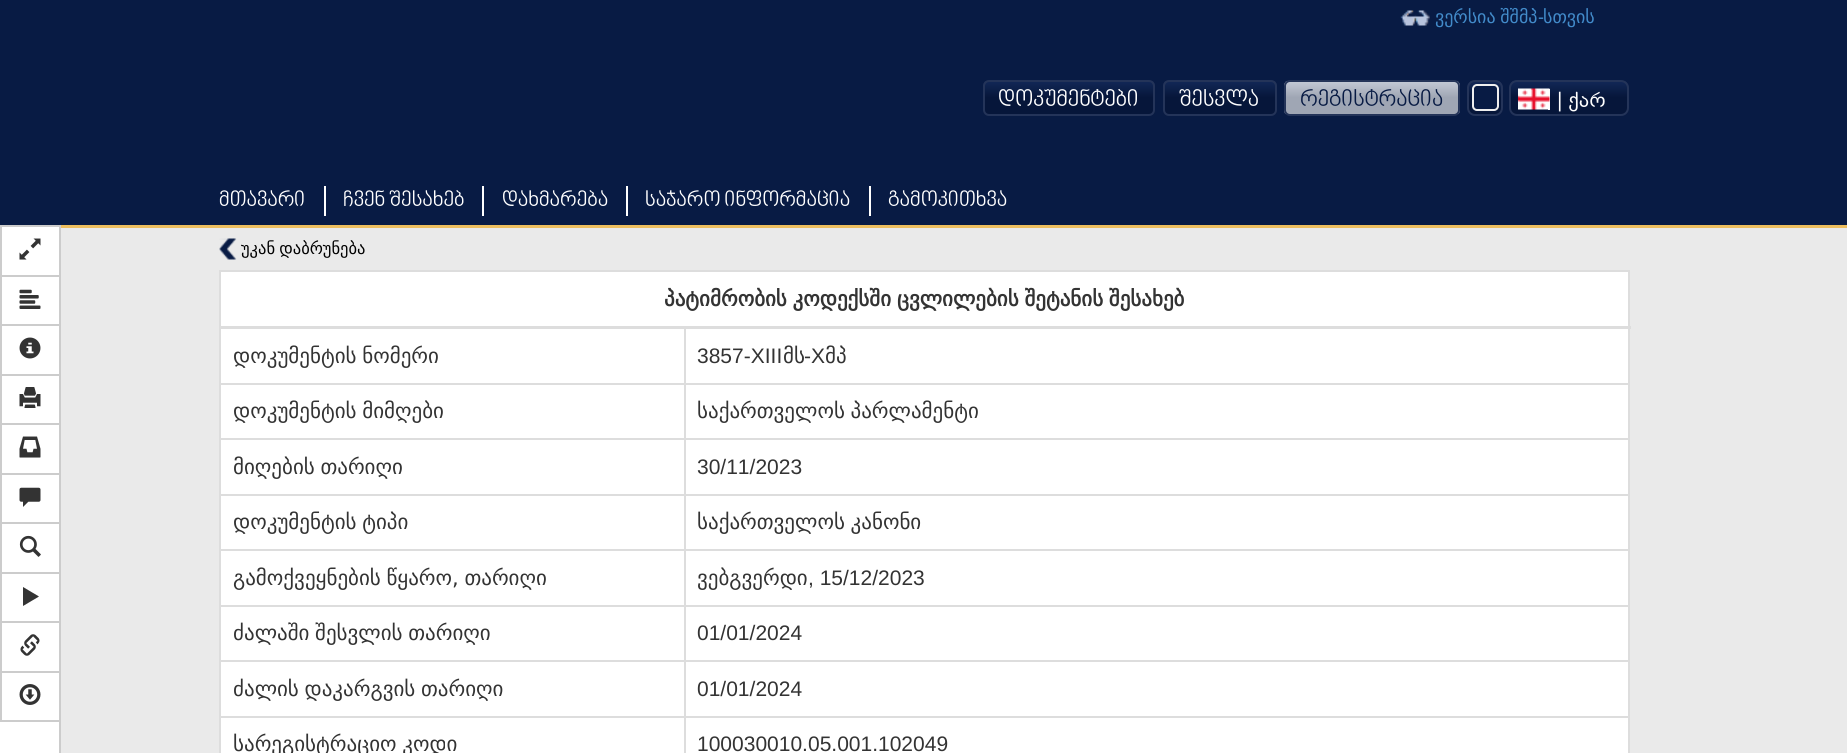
#include <cairo.h>
#include <math.h>
#include <stddef.h>


static void rgb(cairo_t *cr, int r, int g, int b)
{
	cairo_set_source_rgb(cr, r / 255.0, g / 255.0, b / 255.0);
}

static void face(cairo_t *cr, const char *family, double size, int italic, int bold)
{
	cairo_select_font_face(cr, family, italic ? CAIRO_FONT_SLANT_ITALIC : CAIRO_FONT_SLANT_NORMAL,
		bold ? CAIRO_FONT_WEIGHT_BOLD : CAIRO_FONT_WEIGHT_NORMAL);
	cairo_set_font_size(cr, size);
}

static void label(cairo_t *cr, double x, double y, const char *s)
{
	cairo_move_to(cr, x, y);
	cairo_show_text(cr, s);
}

static void tracked(cairo_t *cr, double x, double y, const char *s, double letter, double word)
{
	cairo_move_to(cr, x, y);
	while (*s) {
		char ch[5] = {0};
		int n = 0;
		do ch[n++] = *s++; while ((*s & 0xC0) == 0x80);
		cairo_show_text(cr, ch);
		cairo_rel_move_to(cr, letter + word * (*ch == ' '), 0);
	}
}

static void rect(cairo_t *cr, double x, double y, double w, double h)
{
	cairo_rectangle(cr, x, y, w, h);
	cairo_fill(cr);
}

static void rrect(cairo_t *cr, double x, double y, double w, double h, double r)
{
	cairo_new_sub_path(cr);
	cairo_arc(cr, x + w - r, y + h - r, r, 0, M_PI / 2);
	cairo_arc(cr, x + r, y + h - r, r, M_PI / 2, M_PI);
	cairo_arc(cr, x + r, y + r, r, M_PI, 1.5 * M_PI);
	cairo_arc(cr, x + w - r, y + r, r, 1.5 * M_PI, 2 * M_PI);
	cairo_close_path(cr);
}

static void image(cairo_t *cr, const char *path, double x, double y, double w, double h)
{
	cairo_surface_t *image = cairo_image_surface_create_from_png(path);
	cairo_save(cr);
	cairo_set_source_surface(cr, image, x, y);
	cairo_rectangle(cr, x, y, w, h);
	cairo_fill(cr);
	cairo_restore(cr);
	cairo_surface_destroy(image);
}

static void draw(cairo_t *cr) {
	cairo_pattern_t *gradient;
	rgb(cr, 234, 234, 234);
	cairo_paint(cr);
	rgb(cr, 8, 27, 68);
	rect(cr, 0, 0, 1847, 225);
	rgb(cr, 237, 190, 95);
	rect(cr, 61, 225, 1786, 3);
	image(cr, "image0.png", 1400, 10, 30, 16);
	face(cr, "DejaVu Sans", 18, 0, 0);
	rgb(cr, 66, 139, 202);
	tracked(cr, 1435, 23, "ვერსია შშმპ", 0, -1);
	face(cr, "Liberation Sans", 18, 0, 0);
	label(cr, 1538, 23, "-");
	face(cr, "DejaVu Sans", 18, 0, 0);
	label(cr, 1543, 23, "სთვის");
	cairo_save(cr);
	rrect(cr, 983, 80, 172, 36, 6);
	cairo_clip(cr);
	gradient = cairo_pattern_create_linear(1069, 81, 1069, 114);
	cairo_pattern_add_color_stop_rgba(gradient, 0, 0.071, 0.157, 0.341, 1);
	cairo_pattern_add_color_stop_rgba(gradient, 0.5, 0.024, 0.086, 0.227, 1);
	cairo_set_source(cr, gradient);
	cairo_pattern_destroy(gradient);
	rect(cr, 983, 81, 172, 33);
	cairo_restore(cr);
	rrect(cr, 984, 81, 170, 34, 5);
	rgb(cr, 36, 52, 89);
	cairo_stroke(cr);
	face(cr, "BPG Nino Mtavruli", 22.5, 0, 0);
	rgb(cr, 255, 255, 255);
	label(cr, 998, 107, "დოკუმენტები");
	cairo_save(cr);
	rrect(cr, 1163, 80, 114, 36, 6);
	cairo_clip(cr);
	gradient = cairo_pattern_create_linear(1220, 81, 1220, 114);
	cairo_pattern_add_color_stop_rgba(gradient, 0, 0.071, 0.157, 0.341, 1);
	cairo_pattern_add_color_stop_rgba(gradient, 0.5, 0.024, 0.086, 0.227, 1);
	cairo_set_source(cr, gradient);
	cairo_pattern_destroy(gradient);
	rect(cr, 1163, 81, 114, 33);
	cairo_restore(cr);
	rrect(cr, 1164, 81, 112, 34, 5);
	rgb(cr, 36, 52, 89);
	cairo_stroke(cr);
	rgb(cr, 255, 255, 255);
	label(cr, 1179, 107, "შესვლა");
	cairo_save(cr);
	rrect(cr, 1284, 80, 176, 36, 6);
	cairo_clip(cr);
	gradient = cairo_pattern_create_linear(1372, 81, 1372, 114);
	cairo_pattern_add_color_stop_rgba(gradient, 0, 0.769, 0.792, 0.839, 1);
	cairo_pattern_add_color_stop_rgba(gradient, 0.5, 0.624, 0.651, 0.706, 1);
	cairo_set_source(cr, gradient);
	cairo_pattern_destroy(gradient);
	rect(cr, 1284, 81, 176, 33);
	cairo_restore(cr);
	rrect(cr, 1285, 81, 174, 34, 5);
	rgb(cr, 36, 52, 89);
	cairo_stroke(cr);
	rgb(cr, 8, 27, 68);
	label(cr, 1300, 107, "რეგისტრაცია");
	cairo_save(cr);
	rrect(cr, 1467, 80, 36, 36, 8);
	cairo_clip(cr);
	gradient = cairo_pattern_create_linear(1485, 81, 1485, 114);
	cairo_pattern_add_color_stop_rgba(gradient, 0, 0.071, 0.157, 0.341, 1);
	cairo_pattern_add_color_stop_rgba(gradient, 0.5, 0.024, 0.086, 0.227, 1);
	cairo_set_source(cr, gradient);
	cairo_pattern_destroy(gradient);
	rect(cr, 1467, 81, 36, 33);
	cairo_restore(cr);
	rrect(cr, 1468, 81, 34, 34, 7);
	rgb(cr, 36, 52, 89);
	cairo_stroke(cr);
	rgb(cr, 8, 27, 68);
	rrect(cr, 1473, 85, 25, 25, 4);
	cairo_fill_preserve(cr);
	rgb(cr, 238, 238, 238);
	cairo_stroke(cr);
	cairo_save(cr);
	rrect(cr, 1509, 80, 120, 36, 8);
	cairo_clip(cr);
	gradient = cairo_pattern_create_linear(1569, 81, 1569, 114);
	cairo_pattern_add_color_stop_rgba(gradient, 0, 0.071, 0.157, 0.341, 1);
	cairo_pattern_add_color_stop_rgba(gradient, 0.5, 0.024, 0.086, 0.227, 1);
	cairo_set_source(cr, gradient);
	cairo_pattern_destroy(gradient);
	rect(cr, 1509, 81, 120, 33);
	cairo_restore(cr);
	rrect(cr, 1510, 81, 118, 34, 7);
	rgb(cr, 36, 52, 89);
	cairo_stroke(cr);
	rgb(cr, 255, 255, 255);
	rect(cr, 1548, 89, 2, 21);
	image(cr, "image1.png", 1518, 88, 32, 22);
	face(cr, "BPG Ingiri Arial", 21, 0, 0);
	label(cr, 1557, 107, "| ქარ");
	face(cr, "BPG Nino Mtavruli", 21, 0, 0);
	label(cr, 219, 207, "მთავარი");
	rect(cr, 324, 186, 2, 30);
	label(cr, 343, 207, "ჩვენ შესახებ");
	rect(cr, 482, 186, 2, 30);
	label(cr, 502, 207, "დახმარება");
	rect(cr, 626, 186, 2, 30);
	label(cr, 645, 207, "საჯარო ინფორმაცია");
	rect(cr, 869, 186, 2, 30);
	label(cr, 888, 207, "გამოკითხვა");
	rect(cr, 0, 227, 59, 526);
	rgb(cr, 204, 204, 204);
	rect(cr, 59, 225, 2, 528);
	rect(cr, 0, 225, 59, 2);
	rect(cr, 0, 225, 2, 51);
	image(cr, "image2.png", 19, 238, 22, 22);
	rect(cr, 0, 275, 59, 2);
	rect(cr, 0, 275, 2, 51);
	image(cr, "image3.png", 19, 289, 22, 20);
	rect(cr, 0, 324, 59, 2);
	rect(cr, 0, 324, 2, 51);
	image(cr, "image4.png", 19, 337, 22, 22);
	rect(cr, 0, 374, 59, 2);
	rect(cr, 0, 374, 2, 51);
	image(cr, "image5.png", 19, 387, 22, 21);
	rect(cr, 0, 423, 59, 2);
	rect(cr, 0, 423, 2, 51);
	image(cr, "image6.png", 19, 436, 22, 22);
	rect(cr, 0, 473, 59, 2);
	rect(cr, 0, 473, 2, 51);
	image(cr, "image7.png", 19, 487, 22, 20);
	rect(cr, 0, 522, 59, 2);
	rect(cr, 0, 522, 2, 51);
	image(cr, "image8.png", 19, 535, 22, 22);
	rect(cr, 0, 572, 59, 2);
	rect(cr, 0, 572, 2, 51);
	rgb(cr, 51, 51, 51);
	cairo_new_path(cr);
	cairo_move_to(cr, 23, 606);
	cairo_line_to(cr, 39, 596.5);
	cairo_line_to(cr, 23, 587);
	cairo_close_path(cr);
	cairo_fill(cr);
	rgb(cr, 204, 204, 204);
	rect(cr, 0, 621, 59, 2);
	rect(cr, 0, 621, 2, 51);
	image(cr, "image9.png", 20, 634, 20, 22);
	rect(cr, 0, 671, 59, 2);
	rect(cr, 0, 720, 59, 2);
	rect(cr, 0, 671, 2, 51);
	image(cr, "image10.png", 19, 684, 22, 21);
	image(cr, "image11.png", 219, 238, 18, 22);
	face(cr, "DejaVu Sans", 16.5, 0, 0);
	rgb(cr, 0, 0, 0);
	tracked(cr, 241, 254, "უკან დაბრუნება", 0, -1);
	rgb(cr, 255, 255, 255);
	rect(cr, 221, 272, 1407, 481);
	rgb(cr, 221, 221, 221);
	rect(cr, 219, 270, 1410, 2);
	rect(cr, 1628, 270, 2, 483);
	rect(cr, 219, 270, 2, 483);
	rect(cr, 684, 383, 945, 2);
	rect(cr, 684, 438, 945, 2);
	rect(cr, 684, 494, 945, 2);
	rect(cr, 684, 549, 945, 2);
	rect(cr, 684, 605, 945, 2);
	rect(cr, 684, 660, 945, 2);
	rect(cr, 684, 716, 945, 2);
	rect(cr, 684, 716, 2, 37);
	rect(cr, 219, 716, 467, 2);
	rect(cr, 684, 660, 2, 57);
	rect(cr, 219, 660, 467, 2);
	rect(cr, 684, 605, 2, 57);
	rect(cr, 219, 605, 467, 2);
	rect(cr, 684, 549, 2, 57);
	rect(cr, 219, 549, 467, 2);
	rect(cr, 684, 494, 2, 57);
	rect(cr, 219, 494, 467, 2);
	rect(cr, 684, 438, 2, 57);
	rect(cr, 219, 438, 467, 2);
	rect(cr, 684, 383, 2, 57);
	rect(cr, 219, 383, 467, 2);
	rect(cr, 684, 326, 2, 58);
	rect(cr, 219, 326, 1412, 3);
	face(cr, "DejaVu Sans", 21, 0, 1);
	rgb(cr, 51, 51, 51);
	tracked(cr, 664, 306, "პატიმრობის კოდექსში", 0, -1);
	tracked(cr, 897, 306, "ცვლილების შეტანის შესახებ", 0, -1);
	face(cr, "DejaVu Sans", 21, 0, 0);
	tracked(cr, 233, 363, "დოკუმენტის ნომერი", 0, -1);
	face(cr, "Liberation Sans", 21, 0, 0);
	label(cr, 697, 363, "3857-XIII");
	face(cr, "DejaVu Sans", 21, 0, 0);
	label(cr, 783, 363, "მს");
	face(cr, "Liberation Sans", 21, 0, 0);
	label(cr, 804, 363, "-X");
	face(cr, "DejaVu Sans", 21, 0, 0);
	label(cr, 825, 363, "მპ");
	tracked(cr, 233, 418, "დოკუმენტის მიმღები", 0, -1);
	tracked(cr, 697, 418, "საქართველოს პარლამენტი", 0, -1);
	tracked(cr, 233, 474, "მიღების თარიღი", 0, -1);
	face(cr, "Liberation Sans", 21, 0, 0);
	label(cr, 697, 474, "30/11/2023");
	face(cr, "DejaVu Sans", 21, 0, 0);
	tracked(cr, 233, 529, "დოკუმენტის ტიპი", 0, -1);
	tracked(cr, 697, 529, "საქართველოს კანონი", 0, -1);
	tracked(cr, 233, 585, "გამოქვეყნების წყარო, თარიღი", 0, -1);
	label(cr, 697, 585, "ვებგვერდი");
	face(cr, "Liberation Sans", 21, 0, 0);
	label(cr, 808, 585, ", 15/12/2023");
	face(cr, "DejaVu Sans", 21, 0, 0);
	tracked(cr, 233, 640, "ძალაში შესვლის თარიღი", 0, -1);
	face(cr, "Liberation Sans", 21, 0, 0);
	label(cr, 697, 640, "01/01/2024");
	face(cr, "DejaVu Sans", 21, 0, 0);
	tracked(cr, 233, 696, "ძალის დაკარგვის თარიღი", 0, -1);
	face(cr, "Liberation Sans", 21, 0, 0);
	label(cr, 697, 696, "01/01/2024");
	face(cr, "DejaVu Sans", 21, 0, 0);
	tracked(cr, 233, 751, "სარეგისტრაციო კოდი", 0, -1);
	face(cr, "Liberation Sans", 21, 0, 0);
	label(cr, 697, 751, "100030010.05.001.102049");
}

int main(void) {
	cairo_surface_t *surface = cairo_image_surface_create(CAIRO_FORMAT_RGB24, 1847, 753);
	cairo_t *cr = cairo_create(surface);
	cairo_font_options_t *options = cairo_font_options_create();
	cairo_font_options_set_hint_metrics(options, CAIRO_HINT_METRICS_OFF);
	cairo_font_options_set_hint_style(options, CAIRO_HINT_STYLE_NONE);
	cairo_set_font_options(cr, options);
	cairo_set_miter_limit(cr, 4);
	draw(cr);
	cairo_surface_write_to_png(surface, "render.png");
	cairo_font_options_destroy(options);
	cairo_destroy(cr);
	cairo_surface_destroy(surface);
	return 0;
}
